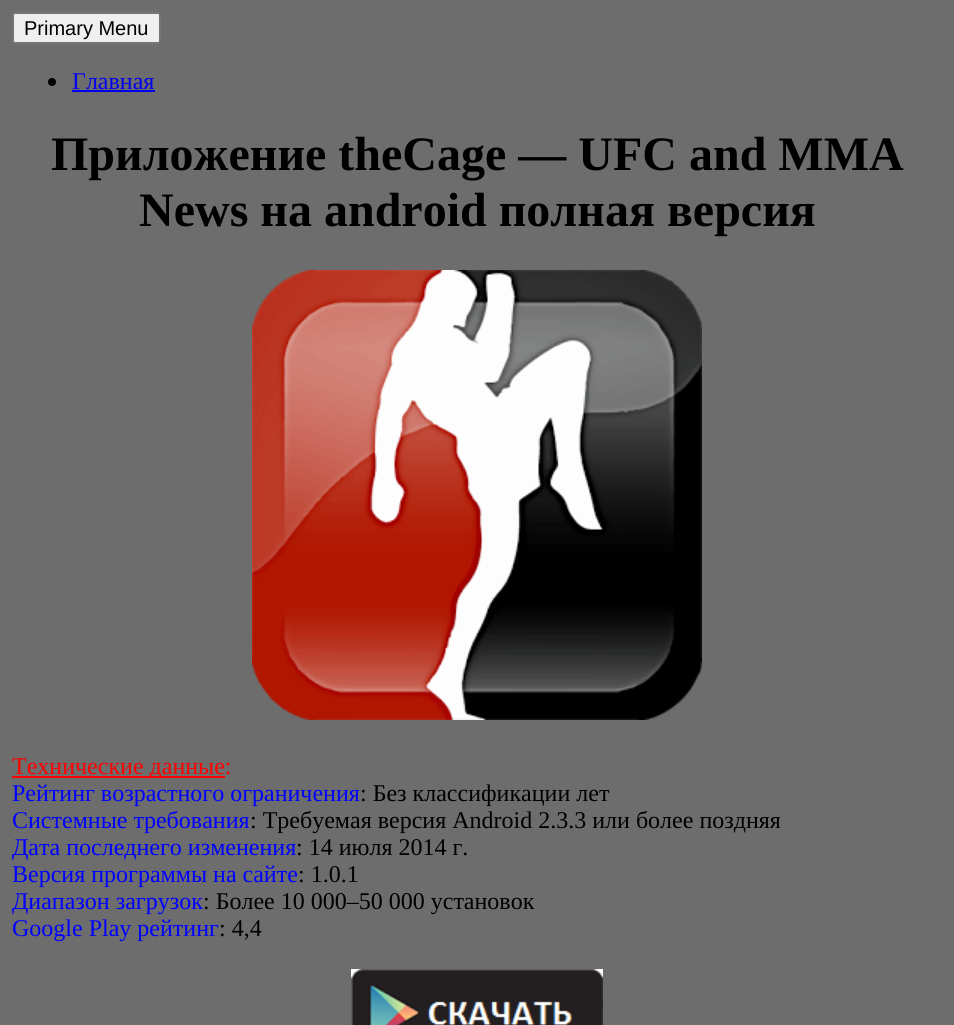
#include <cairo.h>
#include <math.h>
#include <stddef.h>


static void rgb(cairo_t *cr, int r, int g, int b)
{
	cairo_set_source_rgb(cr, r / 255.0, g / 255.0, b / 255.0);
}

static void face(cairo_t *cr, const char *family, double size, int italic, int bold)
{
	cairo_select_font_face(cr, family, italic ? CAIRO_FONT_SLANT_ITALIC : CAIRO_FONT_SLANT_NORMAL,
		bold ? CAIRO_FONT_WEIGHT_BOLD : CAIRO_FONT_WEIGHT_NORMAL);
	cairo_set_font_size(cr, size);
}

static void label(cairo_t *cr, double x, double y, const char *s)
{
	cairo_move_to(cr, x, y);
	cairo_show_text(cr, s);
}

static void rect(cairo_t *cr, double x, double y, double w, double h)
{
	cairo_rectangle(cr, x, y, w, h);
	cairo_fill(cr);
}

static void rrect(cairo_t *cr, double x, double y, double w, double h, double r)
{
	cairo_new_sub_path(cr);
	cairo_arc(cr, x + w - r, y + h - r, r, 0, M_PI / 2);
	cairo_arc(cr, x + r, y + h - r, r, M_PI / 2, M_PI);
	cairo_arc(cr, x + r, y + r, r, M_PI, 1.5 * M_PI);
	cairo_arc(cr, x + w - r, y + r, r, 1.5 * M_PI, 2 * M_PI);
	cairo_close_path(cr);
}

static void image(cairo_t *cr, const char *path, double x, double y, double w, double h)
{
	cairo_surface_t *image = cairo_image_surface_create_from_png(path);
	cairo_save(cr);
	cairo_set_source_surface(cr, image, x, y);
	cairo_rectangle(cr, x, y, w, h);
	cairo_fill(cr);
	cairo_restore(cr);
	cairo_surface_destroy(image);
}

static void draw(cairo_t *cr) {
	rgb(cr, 109, 109, 109);
	cairo_paint(cr);
	rgb(cr, 239, 239, 239);
	rrect(cr, 13, 13, 147, 30, 2);
	cairo_fill_preserve(cr);
	rgb(cr, 118, 118, 118);
	cairo_stroke(cr);
	face(cr, "Liberation Sans", 20, 0, 0);
	rgb(cr, 0, 0, 0);
	label(cr, 24, 35, "Primary Menu");
	cairo_new_path(cr);
	cairo_arc(cr, 52, 82, 4, 0, 2 * M_PI);
	cairo_fill(cr);
	face(cr, "Liberation Serif", 24, 0, 0);
	rgb(cr, 0, 0, 238);
	label(cr, 72, 89, "Главная");
	rect(cr, 72, 90, 83, 2);
	face(cr, "Liberation Serif", 48, 0, 1);
	rgb(cr, 0, 0, 0);
	label(cr, 51, 170, "Приложение theCage — UFC and MMA");
	label(cr, 139, 226, "News на android полная версия");
	image(cr, "image0.png", 252, 270, 450, 450);
	rgb(cr, 255, 0, 0);
	rect(cr, 12, 776, 213, 2);
	face(cr, "Liberation Serif", 24, 0, 0);
	label(cr, 12, 774, "Технические данные:");
	rgb(cr, 0, 0, 255);
	label(cr, 12, 801, "Рейтинг возрастного ограничения");
	rgb(cr, 0, 0, 0);
	label(cr, 360, 801, ": Без классификации лет");
	rgb(cr, 0, 0, 255);
	label(cr, 12, 828, "Системные требования");
	rgb(cr, 0, 0, 0);
	label(cr, 250, 828, ": Требуемая версия Android 2.3.3 или более поздняя");
	rgb(cr, 0, 0, 255);
	label(cr, 12, 855, "Дата последнего изменения");
	rgb(cr, 0, 0, 0);
	label(cr, 296, 855, ": 14 июля 2014 г.");
	rgb(cr, 0, 0, 255);
	label(cr, 12, 882, "Версия программы на сайте");
	rgb(cr, 0, 0, 0);
	label(cr, 298, 882, ": 1.0.1");
	rgb(cr, 0, 0, 255);
	label(cr, 12, 909, "Диапазон загрузок");
	rgb(cr, 0, 0, 0);
	label(cr, 203, 909, ": Более 10 000–50 000 установок");
	rgb(cr, 0, 0, 255);
	label(cr, 12, 936, "Google Play рейтинг");
	rgb(cr, 0, 0, 0);
	label(cr, 219, 936, ": 4,4");
	image(cr, "image1.png", 351, 969, 252, 56);
}

int main(void) {
	cairo_surface_t *surface = cairo_image_surface_create(CAIRO_FORMAT_RGB24, 954, 1025);
	cairo_t *cr = cairo_create(surface);
	cairo_font_options_t *options = cairo_font_options_create();
	cairo_font_options_set_hint_metrics(options, CAIRO_HINT_METRICS_OFF);
	cairo_font_options_set_hint_style(options, CAIRO_HINT_STYLE_NONE);
	cairo_set_font_options(cr, options);
	cairo_set_miter_limit(cr, 4);
	draw(cr);
	cairo_surface_write_to_png(surface, "render.png");
	cairo_font_options_destroy(options);
	cairo_destroy(cr);
	cairo_surface_destroy(surface);
	return 0;
}
